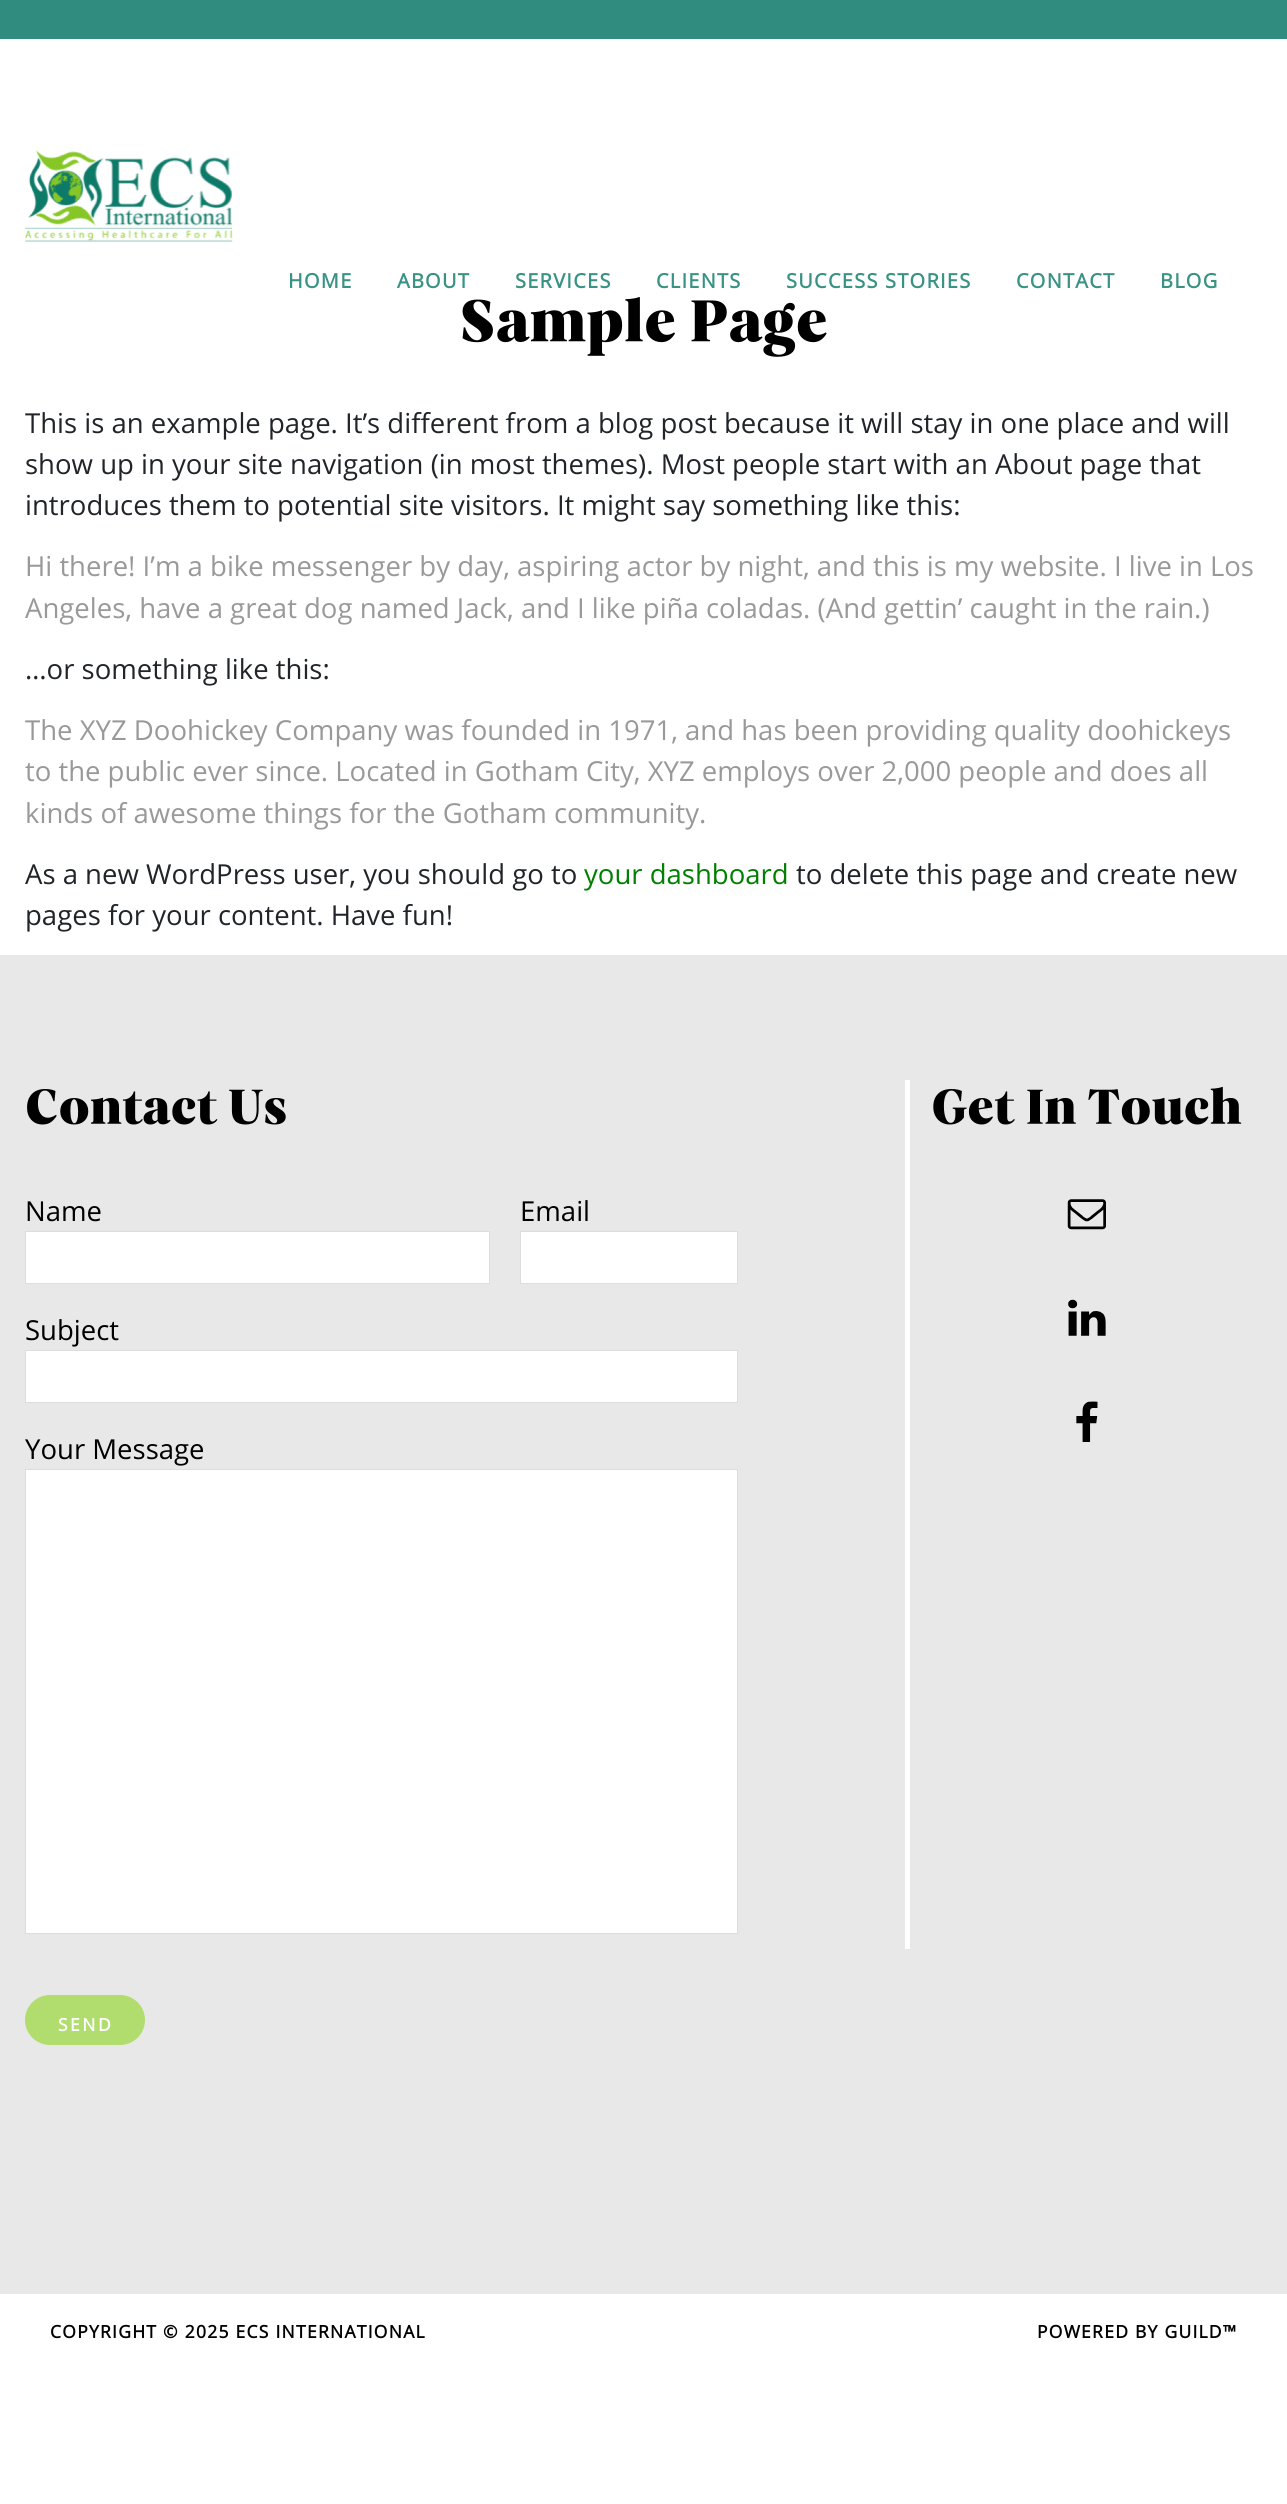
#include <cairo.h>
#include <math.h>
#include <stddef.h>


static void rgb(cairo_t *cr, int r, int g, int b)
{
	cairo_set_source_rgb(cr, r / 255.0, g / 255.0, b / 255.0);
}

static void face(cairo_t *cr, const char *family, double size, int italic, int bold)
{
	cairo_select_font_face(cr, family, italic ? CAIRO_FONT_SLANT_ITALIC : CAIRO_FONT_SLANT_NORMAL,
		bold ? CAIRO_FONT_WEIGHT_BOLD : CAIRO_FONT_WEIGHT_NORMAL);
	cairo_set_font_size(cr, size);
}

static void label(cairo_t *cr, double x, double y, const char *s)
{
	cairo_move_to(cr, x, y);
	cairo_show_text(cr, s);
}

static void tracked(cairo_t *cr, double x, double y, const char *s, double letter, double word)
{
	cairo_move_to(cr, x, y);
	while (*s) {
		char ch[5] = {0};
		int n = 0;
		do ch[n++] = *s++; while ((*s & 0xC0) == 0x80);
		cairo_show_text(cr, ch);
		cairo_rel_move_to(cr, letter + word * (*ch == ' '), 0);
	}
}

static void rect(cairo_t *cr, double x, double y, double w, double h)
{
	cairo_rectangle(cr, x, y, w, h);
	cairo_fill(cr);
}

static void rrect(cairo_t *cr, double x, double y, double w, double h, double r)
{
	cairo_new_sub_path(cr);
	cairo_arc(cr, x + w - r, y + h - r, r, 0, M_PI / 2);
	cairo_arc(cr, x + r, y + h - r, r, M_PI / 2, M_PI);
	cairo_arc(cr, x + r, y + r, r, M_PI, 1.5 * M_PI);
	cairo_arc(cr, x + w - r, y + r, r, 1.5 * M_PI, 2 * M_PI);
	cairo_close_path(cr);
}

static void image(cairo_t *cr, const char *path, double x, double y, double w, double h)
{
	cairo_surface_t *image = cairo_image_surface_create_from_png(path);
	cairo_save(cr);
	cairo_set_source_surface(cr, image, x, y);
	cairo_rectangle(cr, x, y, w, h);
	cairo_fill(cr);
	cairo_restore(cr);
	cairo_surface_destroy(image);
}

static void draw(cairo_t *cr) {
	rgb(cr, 255, 255, 255);
	cairo_paint(cr);
	rgb(cr, 48, 140, 127);
	rect(cr, 0, 0, 1287, 39);
	image(cr, "image0.png", 25, 150, 208, 92);
	face(cr, "Open Sans", 20, 0, 1);
	rgb(cr, 57, 147, 133);
	tracked(cr, 288, 288, "HOME", 1.25, 0);
	tracked(cr, 397, 288, "ABOUT", 1.25, 0);
	tracked(cr, 515, 288, "SERVICES", 1.25, 0);
	tracked(cr, 656, 288, "CLIENTS", 1.25, 0);
	tracked(cr, 786, 288, "SUCCESS STORIES", 1.25, 0);
	tracked(cr, 1016, 288, "CONTACT", 1.25, 0);
	tracked(cr, 1160, 288, "BLOG", 1.25, 0);
	image(cr, "image1.png", 462, 297, 365, 60);
	face(cr, "Open Sans", 27.5, 0, 0);
	rgb(cr, 33, 37, 41);
	label(cr, 25, 433, "This is an example page. It’s different from a blog post because it will stay in one place and will");
	label(cr, 25, 474, "show up in your site navigation (in most themes). Most people start with an About page that");
	label(cr, 25, 515, "introduces them to potential site visitors. It might say something like this:");
	rgb(cr, 153, 153, 153);
	label(cr, 25, 576, "Hi there! I’m a bike messenger by day, aspiring actor by night, and this is my website. I live in Los");
	label(cr, 25, 618, "Angeles, have a great dog named Jack, and I like piña coladas. (And gettin’ caught in the rain.)");
	rgb(cr, 33, 37, 41);
	label(cr, 25, 679, "…or something like this:");
	rgb(cr, 153, 153, 153);
	label(cr, 25, 740, "The XYZ Doohickey Company was founded in 1971, and has been providing quality doohickeys");
	label(cr, 25, 781, "to the public ever since. Located in Gotham City, XYZ employs over 2,000 people and does all");
	label(cr, 25, 823, "kinds of awesome things for the Gotham community.");
	rgb(cr, 33, 37, 41);
	label(cr, 25, 884, "As a new WordPress user, you should go to");
	rgb(cr, 0, 128, 0);
	label(cr, 584, 884, "your dashboard");
	rgb(cr, 33, 37, 41);
	label(cr, 796, 884, "to delete this page and create new");
	label(cr, 25, 925, "pages for your content. Have fun!");
	rgb(cr, 232, 232, 232);
	rect(cr, 0, 955, 1287, 1339);
	image(cr, "image2.png", 27, 1089, 259, 36);
	rgb(cr, 0, 0, 0);
	label(cr, 25, 1221, "Name");
	rgb(cr, 255, 255, 255);
	cairo_rectangle(cr, 25.5, 1231.5, 464, 52);
	cairo_fill_preserve(cr);
	rgb(cr, 221, 221, 221);
	cairo_set_line_width(cr, 1);
	cairo_stroke(cr);
	rgb(cr, 0, 0, 0);
	label(cr, 520, 1221, "Email");
	rgb(cr, 255, 255, 255);
	cairo_rectangle(cr, 520.5, 1231.5, 217, 52);
	cairo_fill_preserve(cr);
	rgb(cr, 221, 221, 221);
	cairo_stroke(cr);
	rgb(cr, 0, 0, 0);
	label(cr, 25, 1340, "Subject");
	rgb(cr, 255, 255, 255);
	cairo_rectangle(cr, 25.5, 1350.5, 712, 52);
	cairo_fill_preserve(cr);
	rgb(cr, 221, 221, 221);
	cairo_stroke(cr);
	rgb(cr, 0, 0, 0);
	label(cr, 25, 1459, "Your Message");
	rgb(cr, 255, 255, 255);
	cairo_rectangle(cr, 25.5, 1469.5, 712, 464);
	cairo_fill_preserve(cr);
	rgb(cr, 221, 221, 221);
	cairo_stroke(cr);
	rgb(cr, 177, 221, 110);
	rrect(cr, 25.5, 1995.5, 119, 49, 24.5);
	cairo_fill_preserve(cr);
	cairo_stroke(cr);
	face(cr, "Open Sans", 17.5, 0, 1);
	rgb(cr, 255, 255, 255);
	tracked(cr, 58, 2031, "SEND", 2.5, 0);
	rect(cr, 905, 1080, 5, 869);
	image(cr, "image3.png", 933, 1086, 309, 39);
	image(cr, "image4.png", 1067, 1199, 39, 31);
	image(cr, "image5.png", 1068, 1299, 38, 37);
	image(cr, "image6.png", 1076, 1401, 22, 41);
	rgb(cr, 0, 0, 0);
	tracked(cr, 50, 2338, "COPYRIGHT © 2025 ECS INTERNATIONAL", 1.25, 0);
	tracked(cr, 1037, 2338, "POWERED BY GUILD™", 1.25, 0);
}

int main(void) {
	cairo_surface_t *surface = cairo_image_surface_create(CAIRO_FORMAT_RGB24, 1287, 2504);
	cairo_t *cr = cairo_create(surface);
	cairo_font_options_t *options = cairo_font_options_create();
	cairo_font_options_set_hint_metrics(options, CAIRO_HINT_METRICS_OFF);
	cairo_font_options_set_hint_style(options, CAIRO_HINT_STYLE_NONE);
	cairo_set_font_options(cr, options);
	cairo_set_miter_limit(cr, 4);
	draw(cr);
	cairo_surface_write_to_png(surface, "render.png");
	cairo_font_options_destroy(options);
	cairo_destroy(cr);
	cairo_surface_destroy(surface);
	return 0;
}
